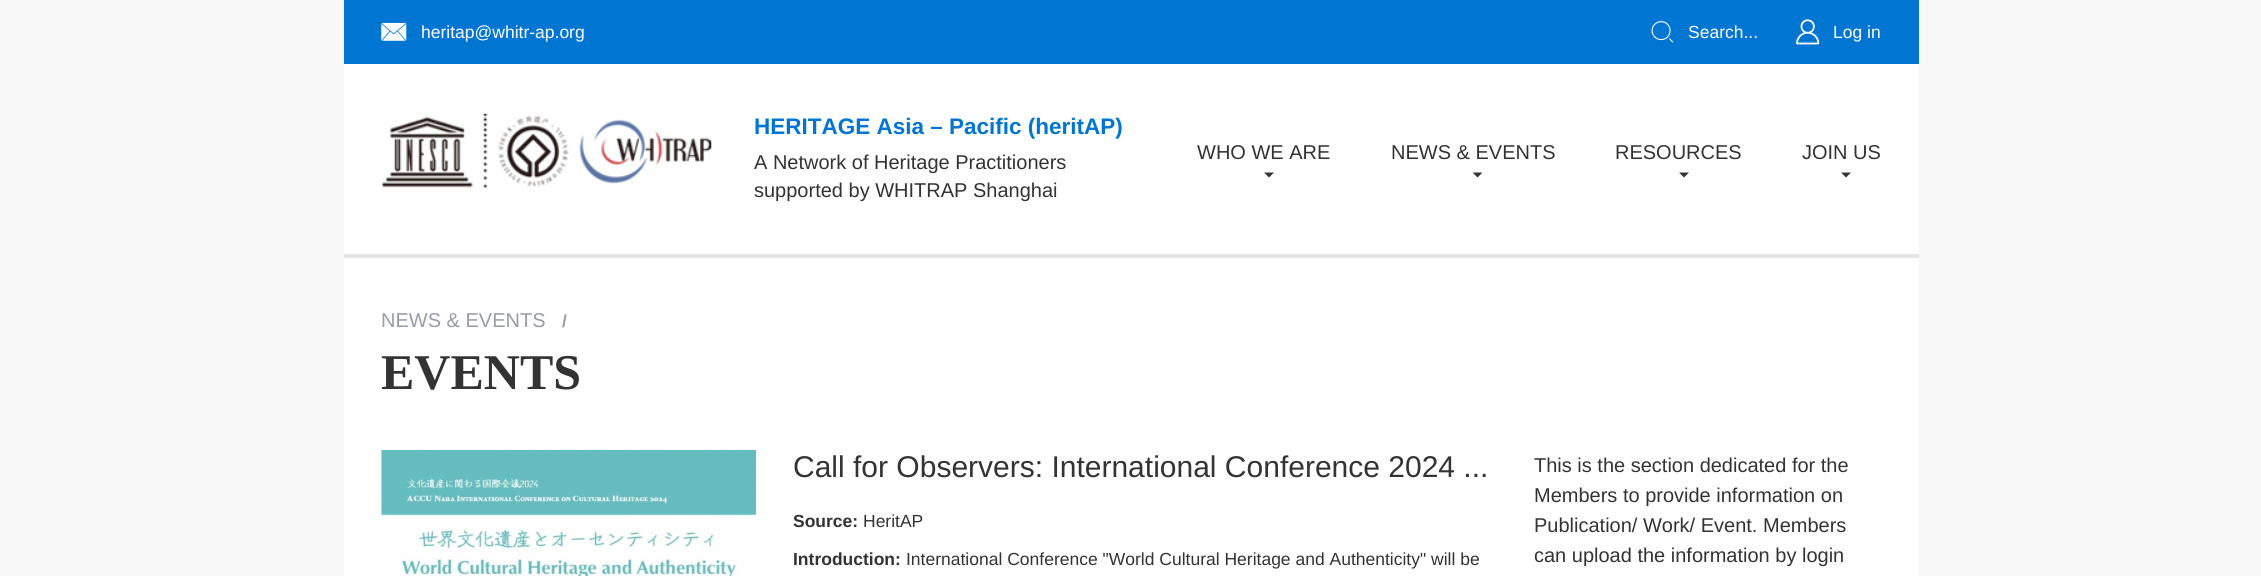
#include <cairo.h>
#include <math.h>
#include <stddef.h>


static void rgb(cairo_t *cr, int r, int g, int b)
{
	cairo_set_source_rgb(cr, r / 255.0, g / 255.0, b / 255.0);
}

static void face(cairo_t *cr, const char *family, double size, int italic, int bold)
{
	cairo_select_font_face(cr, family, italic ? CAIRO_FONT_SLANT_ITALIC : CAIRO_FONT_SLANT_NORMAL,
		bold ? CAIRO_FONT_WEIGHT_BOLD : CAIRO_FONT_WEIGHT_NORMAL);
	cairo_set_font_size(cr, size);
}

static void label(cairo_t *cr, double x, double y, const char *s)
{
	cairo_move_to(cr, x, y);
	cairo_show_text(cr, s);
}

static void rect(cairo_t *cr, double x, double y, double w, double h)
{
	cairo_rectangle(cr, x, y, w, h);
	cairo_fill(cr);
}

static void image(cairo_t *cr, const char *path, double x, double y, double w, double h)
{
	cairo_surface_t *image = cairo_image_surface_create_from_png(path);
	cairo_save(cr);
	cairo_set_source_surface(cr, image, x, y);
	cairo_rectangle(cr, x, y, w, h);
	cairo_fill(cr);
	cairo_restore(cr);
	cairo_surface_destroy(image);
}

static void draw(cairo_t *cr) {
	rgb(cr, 248, 248, 248);
	cairo_paint(cr);
	rgb(cr, 255, 255, 255);
	rect(cr, 344, 64, 1575, 512);
	rgb(cr, 0, 117, 210);
	rect(cr, 344, 0, 1575, 64);
	image(cr, "image0.png", 381, 22, 26, 19);
	face(cr, "Liberation Sans", 17.5, 0, 0);
	rgb(cr, 255, 255, 255);
	label(cr, 421, 38, "heritap@whitr-ap.org");
	image(cr, "image1.png", 1651, 21, 23, 22);
	label(cr, 1688, 38, "Search...");
	image(cr, "image2.png", 1796, 19, 24, 26);
	label(cr, 1833, 38, "Log in");
	rgb(cr, 229, 229, 229);
	rect(cr, 344, 254, 1575, 4);
	image(cr, "image3.png", 382, 113, 330, 75);
	face(cr, "Liberation Sans", 22.5, 0, 1);
	rgb(cr, 0, 117, 209);
	label(cr, 754, 134, "HERITAGE Asia – Pacific (heritAP)");
	face(cr, "Liberation Sans", 20, 0, 0);
	rgb(cr, 51, 51, 51);
	label(cr, 754, 169, "A Network of Heritage Practitioners");
	label(cr, 754, 197, "supported by WHITRAP Shanghai");
	label(cr, 1197, 159, "WHO WE ARE");
	cairo_new_path(cr);
	cairo_move_to(cr, 1264, 172.5);
	cairo_line_to(cr, 1274, 172.5);
	cairo_line_to(cr, 1269, 177.5);
	cairo_close_path(cr);
	cairo_fill(cr);
	label(cr, 1391, 159, "NEWS & EVENTS");
	cairo_new_path(cr);
	cairo_move_to(cr, 1472.5, 172.5);
	cairo_line_to(cr, 1482.5, 172.5);
	cairo_line_to(cr, 1477.5, 177.5);
	cairo_close_path(cr);
	cairo_fill(cr);
	label(cr, 1615, 159, "RESOURCES");
	cairo_new_path(cr);
	cairo_move_to(cr, 1679, 172.5);
	cairo_line_to(cr, 1689, 172.5);
	cairo_line_to(cr, 1684, 177.5);
	cairo_close_path(cr);
	cairo_fill(cr);
	label(cr, 1802, 159, "JOIN US");
	cairo_new_path(cr);
	cairo_move_to(cr, 1841, 172.5);
	cairo_line_to(cr, 1851, 172.5);
	cairo_line_to(cr, 1846, 177.5);
	cairo_close_path(cr);
	cairo_fill(cr);
	rgb(cr, 153, 154, 170);
	label(cr, 381, 327, "NEWS & EVENTS");
	face(cr, "Liberation Sans", 17.5, 0, 1);
	label(cr, 562, 327, "/");
	face(cr, "Liberation Serif", 50, 0, 1);
	rgb(cr, 51, 51, 51);
	label(cr, 381, 389, "EVENTS");
	image(cr, "image4.png", 381, 450, 376, 126);
	face(cr, "Liberation Sans", 30, 0, 0);
	label(cr, 793, 477, "Call for Observers: International Conference 2024 ...");
	face(cr, "Liberation Sans", 17.5, 0, 1);
	label(cr, 793, 527, "Source:");
	face(cr, "Liberation Sans", 17.5, 0, 0);
	label(cr, 863, 527, "HeritAP");
	face(cr, "Liberation Sans", 17.5, 0, 1);
	label(cr, 793, 565, "Introduction:");
	face(cr, "Liberation Sans", 17.5, 0, 0);
	label(cr, 906, 565, "International Conference \"World Cultural Heritage and Authenticity\" will be");
	face(cr, "Liberation Sans", 20, 0, 0);
	label(cr, 1534, 472, "This is the section dedicated for the");
	label(cr, 1534, 502, "Members to provide information on");
	label(cr, 1534, 532, "Publication/ Work/ Event. Members");
	label(cr, 1534, 562, "can upload the information by login");
}

int main(void) {
	cairo_surface_t *surface = cairo_image_surface_create(CAIRO_FORMAT_RGB24, 2261, 576);
	cairo_t *cr = cairo_create(surface);
	cairo_font_options_t *options = cairo_font_options_create();
	cairo_font_options_set_hint_metrics(options, CAIRO_HINT_METRICS_OFF);
	cairo_font_options_set_hint_style(options, CAIRO_HINT_STYLE_NONE);
	cairo_set_font_options(cr, options);
	cairo_set_miter_limit(cr, 4);
	draw(cr);
	cairo_surface_write_to_png(surface, "render.png");
	cairo_font_options_destroy(options);
	cairo_destroy(cr);
	cairo_surface_destroy(surface);
	return 0;
}
